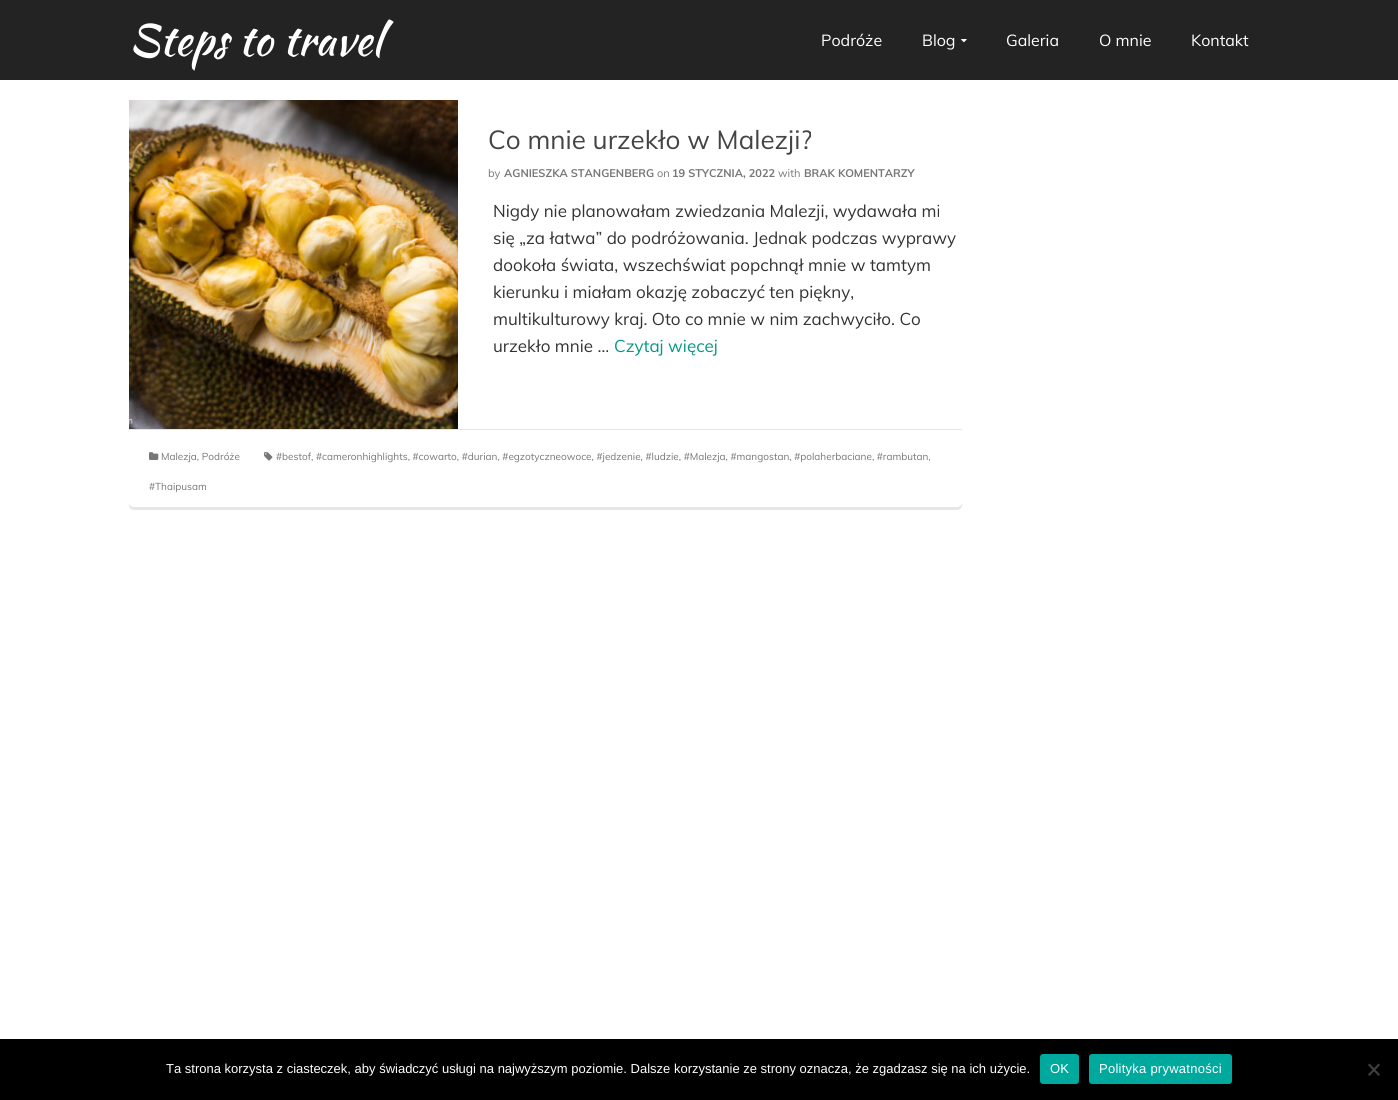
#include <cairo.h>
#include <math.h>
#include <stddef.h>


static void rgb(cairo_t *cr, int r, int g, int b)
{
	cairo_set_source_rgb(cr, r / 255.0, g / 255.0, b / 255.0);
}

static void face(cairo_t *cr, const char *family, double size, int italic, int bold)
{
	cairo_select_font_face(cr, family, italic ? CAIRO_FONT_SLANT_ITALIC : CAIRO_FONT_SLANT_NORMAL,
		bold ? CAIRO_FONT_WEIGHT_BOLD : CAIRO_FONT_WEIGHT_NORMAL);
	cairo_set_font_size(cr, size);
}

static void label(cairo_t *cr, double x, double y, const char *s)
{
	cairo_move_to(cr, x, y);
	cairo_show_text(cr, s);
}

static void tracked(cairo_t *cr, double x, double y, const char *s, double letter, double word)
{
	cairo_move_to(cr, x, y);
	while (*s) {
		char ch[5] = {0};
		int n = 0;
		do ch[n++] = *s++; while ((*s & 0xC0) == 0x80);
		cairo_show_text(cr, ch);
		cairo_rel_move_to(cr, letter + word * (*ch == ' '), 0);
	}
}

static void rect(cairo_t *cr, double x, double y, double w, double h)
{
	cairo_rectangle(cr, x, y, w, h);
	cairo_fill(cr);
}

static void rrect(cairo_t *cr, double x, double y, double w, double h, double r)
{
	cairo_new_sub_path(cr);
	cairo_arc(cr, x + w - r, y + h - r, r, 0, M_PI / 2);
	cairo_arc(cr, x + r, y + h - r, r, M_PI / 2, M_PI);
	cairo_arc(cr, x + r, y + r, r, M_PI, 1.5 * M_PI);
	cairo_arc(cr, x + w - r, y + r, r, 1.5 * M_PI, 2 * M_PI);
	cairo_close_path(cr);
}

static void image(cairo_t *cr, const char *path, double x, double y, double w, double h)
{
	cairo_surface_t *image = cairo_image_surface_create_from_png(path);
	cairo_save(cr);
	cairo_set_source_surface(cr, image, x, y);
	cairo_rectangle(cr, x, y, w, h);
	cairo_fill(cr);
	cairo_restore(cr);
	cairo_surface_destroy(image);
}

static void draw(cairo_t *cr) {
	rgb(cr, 255, 255, 255);
	cairo_paint(cr);
	rgb(cr, 35, 35, 35);
	rect(cr, 0, 0, 1398, 80);
	face(cr, "Kaushan Script", 43, 0, 0);
	rgb(cr, 255, 255, 255);
	label(cr, 129, 55, "Steps to travel");
	face(cr, "Muli", 16, 0, 0);
	label(cr, 821, 46, "Podróże");
	label(cr, 922, 46, "Blog");
	image(cr, "image0.png", 961, 39, 6, 4);
	label(cr, 1006, 46, "Galeria");
	label(cr, 1099, 46, "O mnie");
	label(cr, 1191, 46, "Kontakt");
	image(cr, "image1.png", 129, 100, 329, 329);
	face(cr, "Muli", 26, 0, 0);
	rgb(cr, 68, 68, 68);
	label(cr, 488, 149, "Co mnie urzekło w Malezji?");
	face(cr, "Muli", 11, 0, 0);
	rgb(cr, 119, 119, 119);
	label(cr, 488, 177, "by");
	face(cr, "Muli", 11, 0, 1);
	label(cr, 504, 177, "AGNIESZKA STANGENBERG");
	face(cr, "Muli", 11, 0, 0);
	label(cr, 657, 177, "on");
	face(cr, "Muli", 11, 0, 1);
	label(cr, 672, 177, "19 STYCZNIA, 2022");
	face(cr, "Muli", 11, 0, 0);
	label(cr, 778, 177, "with");
	face(cr, "Muli", 11, 0, 1);
	label(cr, 804, 177, "BRAK KOMENTARZY");
	face(cr, "Muli", 17, 0, 0);
	rgb(cr, 51, 51, 51);
	label(cr, 493, 217, "Nigdy nie planowałam zwiedzania Malezji, wydawała mi");
	label(cr, 493, 244, "się „za łatwa” do podróżowania. Jednak podczas wyprawy");
	label(cr, 493, 271, "dookoła świata, wszechświat popchnął mnie w tamtym");
	label(cr, 493, 298, "kierunku i miałam okazję zobaczyć ten piękny,");
	label(cr, 493, 325, "multikulturowy kraj. Oto co mnie w nim zachwyciło. Co");
	label(cr, 493, 352, "urzekło mnie …");
	rgb(cr, 3, 151, 135);
	label(cr, 614, 352, "Czytaj więcej");
	rgb(cr, 230, 230, 230);
	cairo_new_path(cr);
	cairo_move_to(cr, 129, 502);
	cairo_line_to(cr, 129, 505);
	cairo_curve_to(cr, 129, 508, 131, 510, 134, 510);
	cairo_line_to(cr, 957, 510);
	cairo_curve_to(cr, 960, 510, 962, 508, 962, 505);
	cairo_line_to(cr, 962, 502);
	cairo_curve_to(cr, 962, 505, 960, 507, 957, 507);
	cairo_line_to(cr, 134, 507);
	cairo_curve_to(cr, 131, 507, 129, 505, 129, 502);
	cairo_close_path(cr);
	cairo_fill(cr);
	rect(cr, 129, 429, 833, 1);
	image(cr, "image2.png", 264, 452, 9, 9);
	face(cr, "Muli", 10, 0, 0);
	rgb(cr, 119, 119, 119);
	label(cr, 276, 460, "#bestof, #cameronhighlights, #cowarto, #durian, #egzotyczneowoce, #jedzenie, #ludzie, #Malezja, #mangostan, #polaherbaciane, #rambutan,");
	label(cr, 149, 490, "#Thaipusam");
	image(cr, "image3.png", 149, 452, 10, 8);
	label(cr, 161, 460, "Malezja, Podróże");
	rgb(cr, 0, 0, 0);
	rect(cr, 0, 1039, 1398, 61);
	face(cr, "Liberation Sans", 13, 0, 0);
	rgb(cr, 255, 255, 255);
	label(cr, 166, 1073, "Ta strona korzysta z ciasteczek, aby świadczyć usługi na najwyższym poziomie. Dalsze korzystanie ze strony oznacza, że zgadzasz się na ich użycie.");
	rgb(cr, 0, 169, 157);
	rrect(cr, 1040, 1054, 39, 30, 3);
	cairo_fill(cr);
	rgb(cr, 255, 255, 255);
	tracked(cr, 1050, 1073, "OK", 0.25, 0);
	rgb(cr, 0, 169, 157);
	rrect(cr, 1089, 1054, 143, 30, 3);
	cairo_fill(cr);
	rgb(cr, 255, 255, 255);
	tracked(cr, 1099, 1073, "Polityka prywatności", 0.25, 0);
	rgb(cr, 64, 64, 64);
	cairo_new_path(cr);
	cairo_move_to(cr, 1378.5, 1063.5);
	cairo_line_to(cr, 1380, 1065);
	cairo_line_to(cr, 1369.5, 1076);
	cairo_line_to(cr, 1368, 1074.5);
	cairo_close_path(cr);
	cairo_fill(cr);
	cairo_new_path(cr);
	cairo_move_to(cr, 1368, 1065);
	cairo_line_to(cr, 1369.5, 1063.5);
	cairo_line_to(cr, 1380, 1074.5);
	cairo_line_to(cr, 1378.5, 1076);
	cairo_close_path(cr);
	cairo_fill(cr);
}

int main(void) {
	cairo_surface_t *surface = cairo_image_surface_create(CAIRO_FORMAT_RGB24, 1398, 1100);
	cairo_t *cr = cairo_create(surface);
	cairo_font_options_t *options = cairo_font_options_create();
	cairo_font_options_set_hint_metrics(options, CAIRO_HINT_METRICS_OFF);
	cairo_font_options_set_hint_style(options, CAIRO_HINT_STYLE_NONE);
	cairo_set_font_options(cr, options);
	cairo_set_miter_limit(cr, 4);
	draw(cr);
	cairo_surface_write_to_png(surface, "render.png");
	cairo_font_options_destroy(options);
	cairo_destroy(cr);
	cairo_surface_destroy(surface);
	return 0;
}
